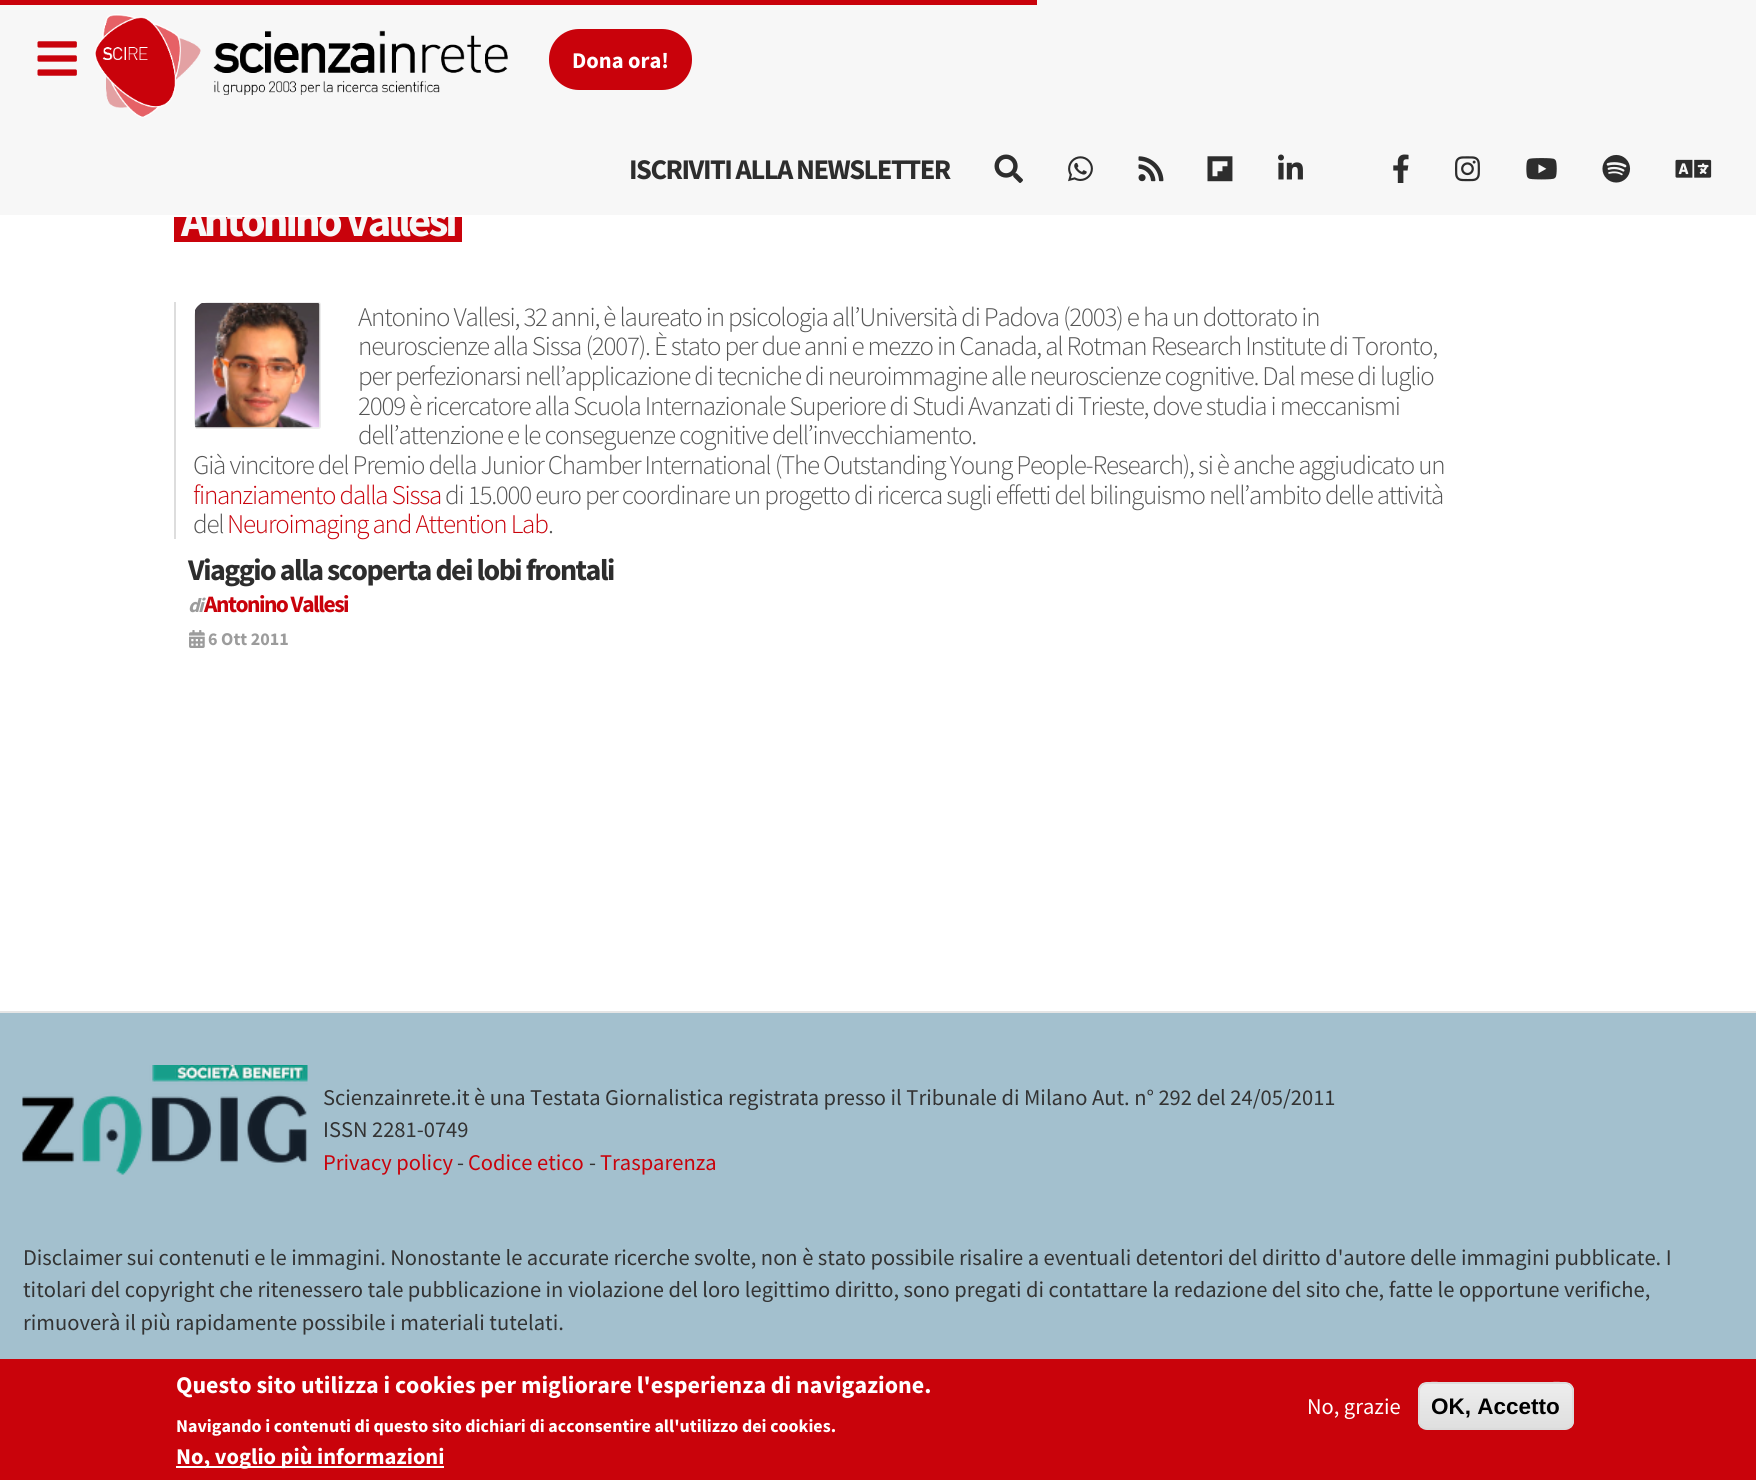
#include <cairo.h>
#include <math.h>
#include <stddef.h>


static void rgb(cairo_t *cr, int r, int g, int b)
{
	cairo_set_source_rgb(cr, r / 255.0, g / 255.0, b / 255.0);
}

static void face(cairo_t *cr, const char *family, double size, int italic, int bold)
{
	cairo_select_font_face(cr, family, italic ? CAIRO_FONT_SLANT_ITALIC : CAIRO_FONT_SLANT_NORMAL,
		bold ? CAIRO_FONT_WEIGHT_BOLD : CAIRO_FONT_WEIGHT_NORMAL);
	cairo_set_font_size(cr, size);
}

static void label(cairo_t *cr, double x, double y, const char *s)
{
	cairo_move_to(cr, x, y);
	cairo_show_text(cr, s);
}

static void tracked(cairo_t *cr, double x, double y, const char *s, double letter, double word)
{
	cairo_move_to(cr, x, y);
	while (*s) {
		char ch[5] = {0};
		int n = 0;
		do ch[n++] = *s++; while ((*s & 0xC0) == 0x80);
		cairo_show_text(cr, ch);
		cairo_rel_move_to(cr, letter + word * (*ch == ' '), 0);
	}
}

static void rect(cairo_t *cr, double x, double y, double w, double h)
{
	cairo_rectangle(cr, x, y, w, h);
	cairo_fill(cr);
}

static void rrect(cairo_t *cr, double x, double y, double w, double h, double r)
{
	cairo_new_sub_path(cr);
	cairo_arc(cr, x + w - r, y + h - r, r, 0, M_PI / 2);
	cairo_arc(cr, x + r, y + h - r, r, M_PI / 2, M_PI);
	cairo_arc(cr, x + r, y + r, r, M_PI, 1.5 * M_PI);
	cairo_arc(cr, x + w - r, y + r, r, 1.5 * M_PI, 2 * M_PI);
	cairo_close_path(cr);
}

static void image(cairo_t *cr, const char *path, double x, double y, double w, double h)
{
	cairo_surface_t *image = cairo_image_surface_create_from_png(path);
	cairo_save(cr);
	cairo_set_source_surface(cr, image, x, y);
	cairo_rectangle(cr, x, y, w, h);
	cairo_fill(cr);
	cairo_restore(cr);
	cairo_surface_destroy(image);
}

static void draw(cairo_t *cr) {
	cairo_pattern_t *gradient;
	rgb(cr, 255, 255, 255);
	cairo_paint(cr);
	rgb(cr, 247, 247, 247);
	rect(cr, 0, 0, 1756, 215);
	rgb(cr, 201, 2, 11);
	rect(cr, 0, 0, 1037, 5);
	rect(cr, 174, 217, 288, 25);
	face(cr, "Source Sans Pro", 45, 0, 1);
	rgb(cr, 247, 247, 247);
	tracked(cr, 181, 236, "Antonino Vallesi", -3, 0);
	rgb(cr, 255, 255, 255);
	rect(cr, 186, 215, 269, 2);
	image(cr, "image0.png", 37, 41, 40, 35);
	image(cr, "image1.png", 94, 14, 414, 104);
	rgb(cr, 201, 2, 11);
	rrect(cr, 549, 29, 143, 61, 30);
	cairo_fill(cr);
	face(cr, "Source Sans Pro", 22.5, 0, 1);
	rgb(cr, 255, 255, 255);
	label(cr, 572, 68, "Dona ora!");
	face(cr, "Source Sans Pro", 28.5, 0, 1);
	rgb(cr, 45, 45, 45);
	tracked(cr, 629, 179, "ISCRIVITI ALLA NEWSLETTER", -1.5, 0);
	image(cr, "image2.png", 994, 154, 29, 29);
	image(cr, "image3.png", 1068, 156, 25, 26);
	image(cr, "image4.png", 1138, 156, 26, 26);
	image(cr, "image5.png", 1207, 156, 26, 26);
	image(cr, "image6.png", 1278, 154, 25, 26);
	image(cr, "image7.png", 1393, 154, 16, 29);
	image(cr, "image8.png", 1455, 156, 25, 26);
	image(cr, "image9.png", 1526, 158, 31, 22);
	image(cr, "image10.png", 1602, 154, 29, 29);
	image(cr, "image11.png", 1675, 159, 37, 19);
	rgb(cr, 221, 221, 221);
	rect(cr, 174, 302, 2, 237);
	rgb(cr, 236, 236, 236);
	cairo_new_path(cr);
	cairo_move_to(cr, 209, 302);
	cairo_curve_to(cr, 206, 302, 204, 303, 202, 304);
	cairo_line_to(cr, 318, 304);
	cairo_curve_to(cr, 319, 304, 319, 304, 319, 305);
	cairo_line_to(cr, 319, 426);
	cairo_curve_to(cr, 319, 427, 319, 427, 318, 427);
	cairo_line_to(cr, 197, 427);
	cairo_curve_to(cr, 196, 427, 196, 427, 196, 426);
	cairo_line_to(cr, 196, 310);
	cairo_curve_to(cr, 195, 312, 194, 314, 194, 317);
	cairo_line_to(cr, 194, 422);
	cairo_curve_to(cr, 194, 424, 195, 427, 196, 429);
	cairo_line_to(cr, 197, 429);
	cairo_line_to(cr, 318, 429);
	cairo_curve_to(cr, 320, 429, 321, 428, 321, 426);
	cairo_line_to(cr, 321, 305);
	cairo_curve_to(cr, 321, 303, 320, 302, 318, 302);
	cairo_close_path(cr);
	cairo_fill(cr);
	image(cr, "image12.png", 195, 303, 125, 125);
	face(cr, "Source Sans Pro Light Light", 27, 0, 0);
	rgb(cr, 85, 85, 85);
	tracked(cr, 358, 326, "Antonino Vallesi, 32 anni, è laureato in psicologia all’Università di Padova (2003) e ha un dottorato in", -1.2, 0);
	tracked(cr, 358, 355, "neuroscienze alla Sissa (2007). È stato per due anni e mezzo in Canada, al Rotman Research Institute di Toronto,", -1.2, 0);
	tracked(cr, 358, 385, "per perfezionarsi nell’applicazione di tecniche di neuroimmagine alle neuroscienze cognitive. Dal mese di luglio", -1.2, 0);
	tracked(cr, 358, 415, "2009 è ricercatore alla Scuola Internazionale Superiore di Studi Avanzati di Trieste, dove studia i meccanismi", -1.2, 0);
	tracked(cr, 358, 444, "dell’attenzione e le conseguenze cognitive dell’invecchiamento.", -1.2, 0);
	tracked(cr, 193, 474, "Già vincitore del Premio della Junior Chamber International (The Outstanding Young People-Research), si è anche aggiudicato un", -1.2, 0);
	rgb(cr, 201, 2, 11);
	tracked(cr, 193, 504, "finanziamento dalla Sissa", -1.2, 0);
	rgb(cr, 85, 85, 85);
	tracked(cr, 445, 504, "di 15.000 euro per coordinare un progetto di ricerca sugli effetti del bilinguismo nell’ambito delle attività", -1.2, 0);
	tracked(cr, 193, 533, "del", -1.2, 0);
	rgb(cr, 201, 2, 11);
	tracked(cr, 227, 533, "Neuroimaging and Attention Lab", -1.2, 0);
	rgb(cr, 85, 85, 85);
	tracked(cr, 548, 533, ".", -1.2, 0);
	face(cr, "Source Sans Pro", 30, 0, 1);
	rgb(cr, 45, 45, 45);
	tracked(cr, 188, 580, "Viaggio alla scoperta dei lobi frontali", -1.5, 0);
	face(cr, "Source Sans Pro", 20, 1, 1);
	rgb(cr, 156, 156, 156);
	tracked(cr, 188, 612, "di", -1.5, 0);
	face(cr, "Source Sans Pro", 23.5, 0, 1);
	rgb(cr, 201, 2, 11);
	tracked(cr, 204, 612, "Antonino Vallesi", -1.5, 0);
	image(cr, "image13.png", 189, 630, 16, 18);
	face(cr, "Source Sans Pro", 18, 0, 1);
	rgb(cr, 156, 156, 156);
	label(cr, 208, 645, "6 Ott 2011");
	rgb(cr, 163, 192, 206);
	rect(cr, 0, 1013, 1756, 346);
	rgb(cr, 229, 229, 229);
	rect(cr, 0, 1011, 1756, 2);
	image(cr, "image14.png", 22, 1065, 286, 110);
	face(cr, "Source Sans Pro", 22.5, 0, 0);
	rgb(cr, 51, 51, 51);
	label(cr, 323, 1105, "Scienzainrete.it è una Testata Giornalistica registrata presso il Tribunale di Milano Aut. n° 292 del 24/05/2011");
	label(cr, 323, 1137, "ISSN 2281-0749");
	rgb(cr, 201, 2, 11);
	label(cr, 323, 1170, "Privacy policy");
	rgb(cr, 51, 51, 51);
	label(cr, 457, 1170, "-");
	rgb(cr, 201, 2, 11);
	label(cr, 468, 1170, "Codice etico");
	rgb(cr, 51, 51, 51);
	label(cr, 589, 1170, "-");
	rgb(cr, 201, 2, 11);
	label(cr, 600, 1170, "Trasparenza");
	rgb(cr, 51, 51, 51);
	label(cr, 23, 1265, "Disclaimer sui contenuti e le immagini. Nonostante le accurate ricerche svolte, non è stato possibile risalire a eventuali detentori del diritto d'autore delle immagini pubblicate. I");
	label(cr, 23, 1297, "titolari del copyright che ritenessero tale pubblicazione in violazione del loro legittimo diritto, sono pregati di contattare la redazione del sito che, fatte le opportune verifiche,");
	label(cr, 23, 1330, "rimuoverà il più rapidamente possibile i materiali tutelati.");
	rgb(cr, 201, 3, 11);
	rect(cr, 0, 1359, 1756, 121);
	face(cr, "Source Sans Pro", 24, 0, 1);
	rgb(cr, 255, 255, 255);
	label(cr, 176, 1393, "Questo sito utilizza i cookies per migliorare l'esperienza di navigazione.");
	face(cr, "Source Sans Pro", 18, 0, 1);
	label(cr, 176, 1432, "Navigando i contenuti di questo sito dichiari di acconsentire all'utilizzo dei cookies.");
	rect(cr, 176, 1466, 268, 2);
	face(cr, "Source Sans Pro", 22.5, 0, 1);
	label(cr, 176, 1464, "No, voglio più informazioni");
	face(cr, "Source Sans Pro", 22.5, 0, 0);
	label(cr, 1307, 1414, "No, grazie");
	cairo_save(cr);
	rrect(cr, 1418, 1382, 156, 48, 9);
	cairo_clip(cr);
	gradient = cairo_pattern_create_linear(1496, 1383, 1496, 1428);
	cairo_pattern_add_color_stop_rgba(gradient, 0.05, 0.929, 0.929, 0.929, 1);
	cairo_pattern_add_color_stop_rgba(gradient, 1, 0.875, 0.875, 0.875, 1);
	cairo_set_source(cr, gradient);
	cairo_pattern_destroy(gradient);
	rect(cr, 1418, 1383, 156, 45);
	cairo_restore(cr);
	cairo_new_path(cr);
	cairo_move_to(cr, 1426, 1384);
	cairo_line_to(cr, 1564, 1384);
	cairo_curve_to(cr, 1569, 1384, 1572, 1388, 1572, 1392);
	cairo_curve_to(cr, 1572, 1377, 1548, 1383, 1541, 1383);
	cairo_line_to(cr, 1450, 1383);
	cairo_curve_to(cr, 1443, 1383, 1419, 1377, 1419, 1392);
	cairo_curve_to(cr, 1419, 1388, 1422, 1384, 1426, 1384);
	cairo_close_path(cr);
	cairo_fill(cr);
	rrect(cr, 1419, 1383, 154, 46, 8);
	rgb(cr, 220, 220, 220);
	cairo_stroke(cr);
	face(cr, "Liberation Sans", 22.5, 0, 1);
	rgb(cr, 0, 0, 0);
	label(cr, 1431, 1414, "OK, Accetto");
}

int main(void) {
	cairo_surface_t *surface = cairo_image_surface_create(CAIRO_FORMAT_RGB24, 1756, 1480);
	cairo_t *cr = cairo_create(surface);
	cairo_font_options_t *options = cairo_font_options_create();
	cairo_font_options_set_hint_metrics(options, CAIRO_HINT_METRICS_OFF);
	cairo_font_options_set_hint_style(options, CAIRO_HINT_STYLE_NONE);
	cairo_set_font_options(cr, options);
	cairo_set_miter_limit(cr, 4);
	draw(cr);
	cairo_surface_write_to_png(surface, "render.png");
	cairo_font_options_destroy(options);
	cairo_destroy(cr);
	cairo_surface_destroy(surface);
	return 0;
}
